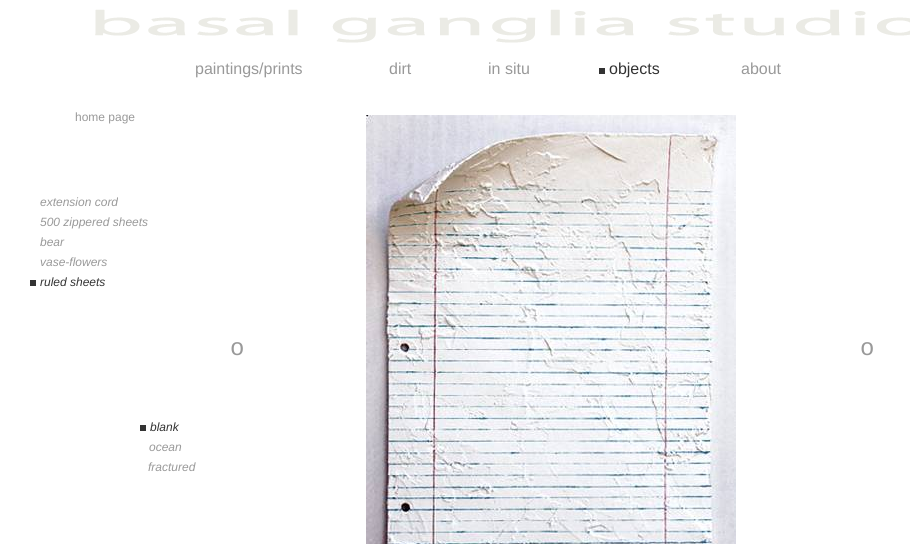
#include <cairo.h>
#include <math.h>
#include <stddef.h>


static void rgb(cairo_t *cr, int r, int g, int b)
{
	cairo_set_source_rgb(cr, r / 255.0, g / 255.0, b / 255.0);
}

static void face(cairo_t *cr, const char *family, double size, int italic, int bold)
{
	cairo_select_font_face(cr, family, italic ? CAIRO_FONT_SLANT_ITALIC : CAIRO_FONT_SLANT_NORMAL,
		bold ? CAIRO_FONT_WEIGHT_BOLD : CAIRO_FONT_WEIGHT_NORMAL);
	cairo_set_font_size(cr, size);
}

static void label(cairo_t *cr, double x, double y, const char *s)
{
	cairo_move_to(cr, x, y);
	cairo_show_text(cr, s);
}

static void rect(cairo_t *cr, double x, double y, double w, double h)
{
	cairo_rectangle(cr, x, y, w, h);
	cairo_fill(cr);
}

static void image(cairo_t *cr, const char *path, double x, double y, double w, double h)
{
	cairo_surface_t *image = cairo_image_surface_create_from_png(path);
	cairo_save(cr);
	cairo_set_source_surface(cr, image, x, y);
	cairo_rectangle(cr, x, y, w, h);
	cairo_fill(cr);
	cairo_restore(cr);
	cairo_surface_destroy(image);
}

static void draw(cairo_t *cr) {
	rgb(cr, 255, 255, 255);
	cairo_paint(cr);
	image(cr, "image0.png", 95, 9, 815, 34);
	face(cr, "Liberation Sans", 16, 0, 0);
	rgb(cr, 153, 153, 153);
	label(cr, 195, 74, "paintings/prints");
	label(cr, 389, 74, "dirt");
	label(cr, 488, 74, "in situ");
	rgb(cr, 51, 51, 51);
	rect(cr, 599, 68, 6, 6);
	label(cr, 609, 74, "objects");
	rgb(cr, 153, 153, 153);
	label(cr, 741, 74, "about");
	face(cr, "Liberation Sans", 12, 0, 0);
	label(cr, 75, 121, "home page");
	image(cr, "image1.png", 366, 115, 370, 429);
	face(cr, "Liberation Sans", 12, 1, 0);
	label(cr, 40, 206, "extension cord");
	label(cr, 40, 226, "500 zippered sheets");
	label(cr, 40, 246, "bear");
	label(cr, 40, 266, "vase-flowers");
	rgb(cr, 51, 51, 51);
	rect(cr, 30, 280, 6, 6);
	label(cr, 40, 286, "ruled sheets");
	face(cr, "Liberation Mono", 24, 0, 0);
	rgb(cr, 153, 153, 153);
	label(cr, 230, 355, "o");
	label(cr, 860, 355, "o");
	rgb(cr, 51, 51, 51);
	rect(cr, 140, 425, 6, 6);
	face(cr, "Liberation Sans", 12, 1, 0);
	label(cr, 150, 431, "blank");
	rgb(cr, 153, 153, 153);
	label(cr, 149, 451, "ocean");
	label(cr, 148, 471, "fractured");
}

int main(void) {
	cairo_surface_t *surface = cairo_image_surface_create(CAIRO_FORMAT_RGB24, 910, 544);
	cairo_t *cr = cairo_create(surface);
	cairo_font_options_t *options = cairo_font_options_create();
	cairo_font_options_set_hint_metrics(options, CAIRO_HINT_METRICS_OFF);
	cairo_font_options_set_hint_style(options, CAIRO_HINT_STYLE_NONE);
	cairo_set_font_options(cr, options);
	cairo_set_miter_limit(cr, 4);
	draw(cr);
	cairo_surface_write_to_png(surface, "render.png");
	cairo_font_options_destroy(options);
	cairo_destroy(cr);
	cairo_surface_destroy(surface);
	return 0;
}
